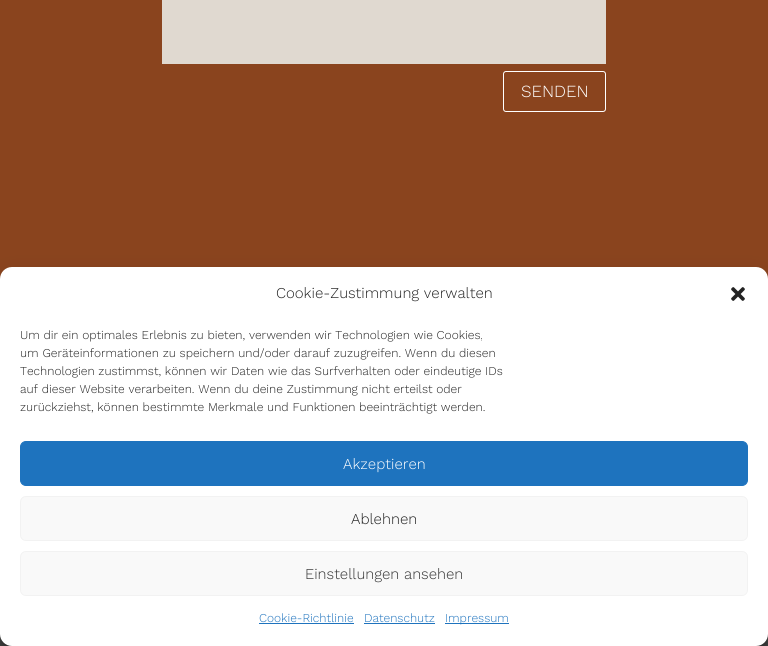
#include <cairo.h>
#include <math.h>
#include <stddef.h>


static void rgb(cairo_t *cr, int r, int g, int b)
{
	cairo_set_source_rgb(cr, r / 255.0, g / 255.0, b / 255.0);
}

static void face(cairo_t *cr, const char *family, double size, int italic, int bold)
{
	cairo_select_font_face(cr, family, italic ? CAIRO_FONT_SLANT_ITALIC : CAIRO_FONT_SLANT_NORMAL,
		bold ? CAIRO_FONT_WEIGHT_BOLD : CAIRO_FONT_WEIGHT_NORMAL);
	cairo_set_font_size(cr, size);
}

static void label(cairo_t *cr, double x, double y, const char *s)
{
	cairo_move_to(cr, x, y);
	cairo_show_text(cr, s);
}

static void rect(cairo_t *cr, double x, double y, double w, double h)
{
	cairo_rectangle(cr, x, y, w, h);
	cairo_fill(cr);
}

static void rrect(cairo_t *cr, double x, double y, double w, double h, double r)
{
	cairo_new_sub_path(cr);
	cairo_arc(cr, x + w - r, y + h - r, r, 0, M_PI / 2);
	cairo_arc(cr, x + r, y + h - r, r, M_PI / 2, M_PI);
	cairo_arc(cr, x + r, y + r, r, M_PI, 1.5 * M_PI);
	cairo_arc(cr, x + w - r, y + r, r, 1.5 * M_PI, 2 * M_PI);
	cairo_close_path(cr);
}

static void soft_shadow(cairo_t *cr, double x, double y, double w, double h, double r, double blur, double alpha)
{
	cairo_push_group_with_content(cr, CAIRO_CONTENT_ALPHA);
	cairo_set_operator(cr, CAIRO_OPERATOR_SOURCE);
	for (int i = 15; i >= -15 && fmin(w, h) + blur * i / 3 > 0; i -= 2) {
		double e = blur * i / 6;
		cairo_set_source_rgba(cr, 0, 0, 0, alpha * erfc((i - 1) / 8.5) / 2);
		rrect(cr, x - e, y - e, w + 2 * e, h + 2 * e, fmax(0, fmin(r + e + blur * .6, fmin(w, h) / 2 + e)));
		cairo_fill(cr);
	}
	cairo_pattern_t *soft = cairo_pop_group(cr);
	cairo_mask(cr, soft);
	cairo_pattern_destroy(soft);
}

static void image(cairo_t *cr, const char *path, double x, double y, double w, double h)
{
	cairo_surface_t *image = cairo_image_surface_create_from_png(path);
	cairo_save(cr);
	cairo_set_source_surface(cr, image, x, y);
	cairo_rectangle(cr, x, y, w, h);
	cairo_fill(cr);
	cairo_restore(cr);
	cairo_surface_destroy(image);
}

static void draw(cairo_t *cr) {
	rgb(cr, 138, 68, 30);
	cairo_paint(cr);
	rgb(cr, 224, 217, 208);
	rect(cr, 162, 0, 444, 64);
	rrect(cr, 503.5, 71.5, 102, 40, 2.5);
	rgb(cr, 255, 255, 255);
	cairo_set_line_width(cr, 1);
	cairo_stroke(cr);
	face(cr, "Work Sans Light", 17, 0, 0);
	label(cr, 521, 97, "SENDEN");
	rgb(cr, 70, 70, 69);
	rect(cr, 0, 634, 768, 12);
	rgb(cr, 0, 0, 0);
	soft_shadow(cr, 0, 273, 768, 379, 12, 3, 0.23);
	soft_shadow(cr, 0, 277, 768, 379, 12, 10, 0.19);
	rgb(cr, 255, 255, 255);
	rrect(cr, 0, 267, 768, 379, 12);
	cairo_fill(cr);
	face(cr, "Work Sans Light", 15, 0, 0);
	rgb(cr, 34, 34, 34);
	label(cr, 276, 298, "Cookie-Zustimmung verwalten");
	image(cr, "image0.png", 731, 287, 14, 14);
	face(cr, "Work Sans Light", 12, 0, 0);
	label(cr, 20, 339, "Um dir ein optimales Erlebnis zu bieten, verwenden wir Technologien wie Cookies,");
	label(cr, 20, 357, "um Geräteinformationen zu speichern und/oder darauf zuzugreifen. Wenn du diesen");
	label(cr, 20, 375, "Technologien zustimmst, können wir Daten wie das Surfverhalten oder eindeutige IDs");
	label(cr, 20, 393, "auf dieser Website verarbeiten. Wenn du deine Zustimmung nicht erteilst oder");
	label(cr, 20, 411, "zurückziehst, können bestimmte Merkmale und Funktionen beeinträchtigt werden.");
	rgb(cr, 30, 115, 190);
	rrect(cr, 20.5, 441.5, 727, 44, 5.5);
	cairo_fill_preserve(cr);
	cairo_stroke(cr);
	face(cr, "Work Sans Light", 15, 0, 0);
	rgb(cr, 255, 255, 255);
	label(cr, 343, 469, "Akzeptieren");
	rgb(cr, 249, 249, 249);
	rrect(cr, 20.5, 496.5, 727, 44, 5.5);
	cairo_fill_preserve(cr);
	rgb(cr, 242, 242, 242);
	cairo_stroke(cr);
	rgb(cr, 34, 34, 34);
	label(cr, 351, 524, "Ablehnen");
	rgb(cr, 249, 249, 249);
	rrect(cr, 20.5, 551.5, 727, 44, 5.5);
	cairo_fill_preserve(cr);
	rgb(cr, 242, 242, 242);
	cairo_stroke(cr);
	rgb(cr, 51, 51, 51);
	label(cr, 305, 579, "Einstellungen ansehen");
	face(cr, "Work Sans Light", 12, 0, 0);
	rgb(cr, 30, 115, 190);
	label(cr, 259, 622, "Cookie-Richtlinie");
	rect(cr, 259, 623, 95, 1);
	label(cr, 364, 622, "Datenschutz");
	rect(cr, 364, 623, 71, 1);
	rect(cr, 445, 623, 64, 1);
	label(cr, 445, 622, "Impressum");
}

int main(void) {
	cairo_surface_t *surface = cairo_image_surface_create(CAIRO_FORMAT_RGB24, 768, 646);
	cairo_t *cr = cairo_create(surface);
	cairo_font_options_t *options = cairo_font_options_create();
	cairo_font_options_set_hint_metrics(options, CAIRO_HINT_METRICS_OFF);
	cairo_font_options_set_hint_style(options, CAIRO_HINT_STYLE_NONE);
	cairo_set_font_options(cr, options);
	cairo_set_miter_limit(cr, 4);
	draw(cr);
	cairo_surface_write_to_png(surface, "render.png");
	cairo_font_options_destroy(options);
	cairo_destroy(cr);
	cairo_surface_destroy(surface);
	return 0;
}
